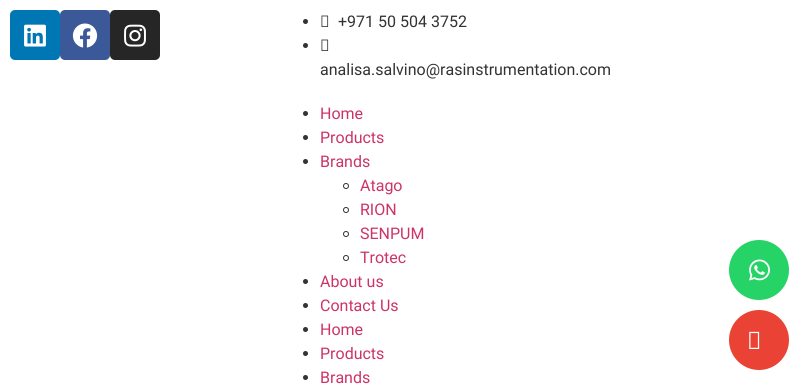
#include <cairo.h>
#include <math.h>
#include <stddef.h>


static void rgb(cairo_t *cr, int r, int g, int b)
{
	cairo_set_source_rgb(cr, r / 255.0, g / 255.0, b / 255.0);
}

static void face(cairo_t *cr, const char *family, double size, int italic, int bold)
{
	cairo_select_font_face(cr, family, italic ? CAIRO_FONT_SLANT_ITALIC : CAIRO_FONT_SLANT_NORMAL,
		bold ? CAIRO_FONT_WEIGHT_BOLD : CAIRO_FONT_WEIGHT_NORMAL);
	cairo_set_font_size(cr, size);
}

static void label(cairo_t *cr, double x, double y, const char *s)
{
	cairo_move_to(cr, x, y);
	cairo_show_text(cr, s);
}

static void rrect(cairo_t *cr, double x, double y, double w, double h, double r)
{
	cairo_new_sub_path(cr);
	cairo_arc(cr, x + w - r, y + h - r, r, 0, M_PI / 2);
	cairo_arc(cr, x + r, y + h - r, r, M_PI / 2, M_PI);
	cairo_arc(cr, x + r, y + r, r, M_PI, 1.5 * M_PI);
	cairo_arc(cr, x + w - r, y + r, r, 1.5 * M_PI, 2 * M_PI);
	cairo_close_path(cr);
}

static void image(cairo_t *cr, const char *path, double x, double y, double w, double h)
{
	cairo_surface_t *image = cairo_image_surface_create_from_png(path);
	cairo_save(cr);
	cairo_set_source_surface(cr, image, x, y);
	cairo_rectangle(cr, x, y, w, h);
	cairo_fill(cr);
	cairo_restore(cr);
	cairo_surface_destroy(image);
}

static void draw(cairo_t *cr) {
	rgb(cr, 255, 255, 255);
	cairo_paint(cr);
	rgb(cr, 0, 119, 181);
	rrect(cr, 10, 10, 50, 50, 5);
	cairo_fill(cr);
	image(cr, "image0.png", 24, 24, 22, 23);
	rgb(cr, 59, 89, 152);
	rrect(cr, 60, 10, 50, 50, 5);
	cairo_fill(cr);
	image(cr, "image1.png", 72, 23, 26, 25);
	rgb(cr, 38, 38, 38);
	rrect(cr, 110, 10, 50, 50, 5);
	cairo_fill(cr);
	image(cr, "image2.png", 124, 24, 22, 23);
	rgb(cr, 51, 51, 51);
	cairo_arc(cr, 305.5, 21.5, 2.5, 0, 2 * M_PI);
	cairo_fill(cr);
	image(cr, "image3.png", 321, 15, 8, 12);
	face(cr, "Roboto", 16, 0, 0);
	label(cr, 338, 27, "+971 50 504 3752");
	cairo_new_path(cr);
	cairo_arc(cr, 305.5, 45.5, 2.5, 0, 2 * M_PI);
	cairo_fill(cr);
	image(cr, "image3.png", 321, 39, 8, 12);
	label(cr, 320, 75, "analisa.salvino@rasinstrumentation.com");
	cairo_new_path(cr);
	cairo_arc(cr, 305.5, 113.5, 2.5, 0, 2 * M_PI);
	cairo_fill(cr);
	rgb(cr, 204, 51, 102);
	label(cr, 320, 119, "Home");
	rgb(cr, 51, 51, 51);
	cairo_new_path(cr);
	cairo_arc(cr, 305.5, 137.5, 2.5, 0, 2 * M_PI);
	cairo_fill(cr);
	rgb(cr, 204, 51, 102);
	label(cr, 320, 143, "Products");
	rgb(cr, 51, 51, 51);
	cairo_new_path(cr);
	cairo_arc(cr, 305.5, 161.5, 2.5, 0, 2 * M_PI);
	cairo_fill(cr);
	rgb(cr, 204, 51, 102);
	label(cr, 320, 167, "Brands");
	cairo_new_path(cr);
	cairo_arc(cr, 346, 186, 2.5, 0, 2 * M_PI);
	rgb(cr, 51, 51, 51);
	cairo_set_line_width(cr, 1);
	cairo_stroke(cr);
	rgb(cr, 204, 51, 102);
	label(cr, 360, 191, "Atago");
	cairo_new_path(cr);
	cairo_arc(cr, 346, 210, 2.5, 0, 2 * M_PI);
	rgb(cr, 51, 51, 51);
	cairo_stroke(cr);
	rgb(cr, 204, 51, 102);
	label(cr, 360, 215, "RION");
	cairo_new_path(cr);
	cairo_arc(cr, 346, 234, 2.5, 0, 2 * M_PI);
	rgb(cr, 51, 51, 51);
	cairo_stroke(cr);
	rgb(cr, 204, 51, 102);
	label(cr, 360, 239, "SENPUM");
	cairo_new_path(cr);
	cairo_arc(cr, 346, 258, 2.5, 0, 2 * M_PI);
	rgb(cr, 51, 51, 51);
	cairo_stroke(cr);
	rgb(cr, 204, 51, 102);
	label(cr, 360, 263, "Trotec");
	rgb(cr, 51, 51, 51);
	cairo_new_path(cr);
	cairo_arc(cr, 305.5, 281.5, 2.5, 0, 2 * M_PI);
	cairo_fill(cr);
	rgb(cr, 204, 51, 102);
	label(cr, 320, 287, "About us");
	rgb(cr, 51, 51, 51);
	cairo_new_path(cr);
	cairo_arc(cr, 305.5, 305.5, 2.5, 0, 2 * M_PI);
	cairo_fill(cr);
	rgb(cr, 204, 51, 102);
	label(cr, 320, 311, "Contact Us");
	rgb(cr, 51, 51, 51);
	cairo_new_path(cr);
	cairo_arc(cr, 305.5, 329.5, 2.5, 0, 2 * M_PI);
	cairo_fill(cr);
	rgb(cr, 204, 51, 102);
	label(cr, 320, 335, "Home");
	rgb(cr, 51, 51, 51);
	cairo_new_path(cr);
	cairo_arc(cr, 305.5, 353.5, 2.5, 0, 2 * M_PI);
	cairo_fill(cr);
	rgb(cr, 204, 51, 102);
	label(cr, 320, 359, "Products");
	rgb(cr, 51, 51, 51);
	cairo_new_path(cr);
	cairo_arc(cr, 305.5, 377.5, 2.5, 0, 2 * M_PI);
	cairo_fill(cr);
	rgb(cr, 204, 51, 102);
	label(cr, 320, 383, "Brands");
	rgb(cr, 37, 211, 102);
	cairo_new_path(cr);
	cairo_arc(cr, 759, 270, 30, 0, 2 * M_PI);
	cairo_fill(cr);
	image(cr, "image4.png", 749, 259, 21, 22);
	rgb(cr, 234, 67, 53);
	cairo_arc(cr, 759, 340, 30, 0, 2 * M_PI);
	cairo_fill(cr);
	image(cr, "image5.png", 749, 331, 11, 18);
}

int main(void) {
	cairo_surface_t *surface = cairo_image_surface_create(CAIRO_FORMAT_RGB24, 809, 390);
	cairo_t *cr = cairo_create(surface);
	cairo_font_options_t *options = cairo_font_options_create();
	cairo_font_options_set_hint_metrics(options, CAIRO_HINT_METRICS_OFF);
	cairo_font_options_set_hint_style(options, CAIRO_HINT_STYLE_NONE);
	cairo_set_font_options(cr, options);
	cairo_set_miter_limit(cr, 4);
	draw(cr);
	cairo_surface_write_to_png(surface, "render.png");
	cairo_font_options_destroy(options);
	cairo_destroy(cr);
	cairo_surface_destroy(surface);
	return 0;
}
